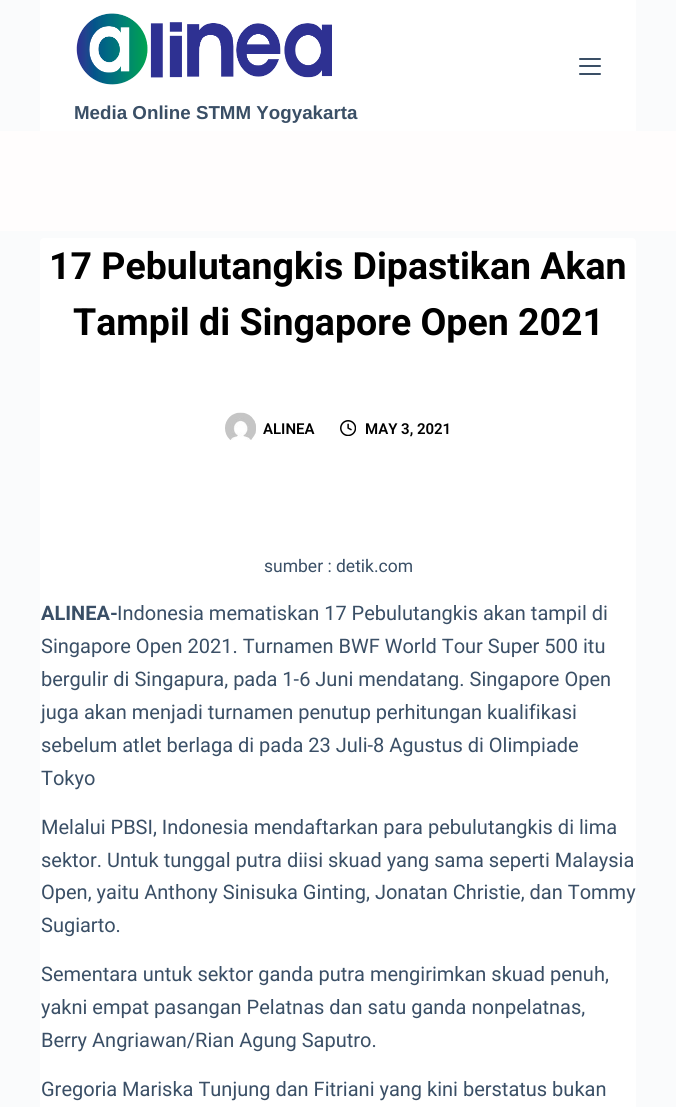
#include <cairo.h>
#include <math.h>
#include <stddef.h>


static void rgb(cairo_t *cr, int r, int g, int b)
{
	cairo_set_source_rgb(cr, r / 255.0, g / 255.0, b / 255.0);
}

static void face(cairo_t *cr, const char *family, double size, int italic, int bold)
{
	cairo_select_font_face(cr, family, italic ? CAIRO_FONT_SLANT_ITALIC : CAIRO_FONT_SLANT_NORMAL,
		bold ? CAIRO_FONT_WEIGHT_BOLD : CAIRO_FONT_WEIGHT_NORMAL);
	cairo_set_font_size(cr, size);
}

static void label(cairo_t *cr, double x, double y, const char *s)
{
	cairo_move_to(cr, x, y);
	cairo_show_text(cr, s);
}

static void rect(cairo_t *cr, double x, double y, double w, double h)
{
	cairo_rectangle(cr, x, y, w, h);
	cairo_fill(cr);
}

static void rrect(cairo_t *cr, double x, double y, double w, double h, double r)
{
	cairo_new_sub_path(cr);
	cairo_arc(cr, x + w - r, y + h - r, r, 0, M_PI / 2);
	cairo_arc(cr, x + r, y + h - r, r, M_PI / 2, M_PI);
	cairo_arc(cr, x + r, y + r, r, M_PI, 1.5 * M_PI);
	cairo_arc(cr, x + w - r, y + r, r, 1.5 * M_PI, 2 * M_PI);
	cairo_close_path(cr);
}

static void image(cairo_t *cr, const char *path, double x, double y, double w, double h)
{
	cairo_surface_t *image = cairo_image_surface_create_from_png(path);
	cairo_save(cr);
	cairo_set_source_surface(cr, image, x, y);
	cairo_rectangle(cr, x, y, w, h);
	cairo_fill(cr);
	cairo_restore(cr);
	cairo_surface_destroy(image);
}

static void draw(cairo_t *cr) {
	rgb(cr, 250, 251, 252);
	cairo_paint(cr);
	rgb(cr, 255, 255, 255);
	rect(cr, 40, 0, 596, 131);
	rgb(cr, 58, 79, 102);
	rrect(cr, 579, 58, 22, 2, 1);
	cairo_fill(cr);
	rrect(cr, 579, 65, 22, 2, 1);
	cairo_fill(cr);
	rrect(cr, 579, 73, 22, 2, 1);
	cairo_fill(cr);
	image(cr, "image0.png", 76, 13, 256, 72);
	face(cr, "Liberation Sans", 18.75, 0, 1);
	label(cr, 74, 119, "Media Online STMM Yogyakarta");
	rgb(cr, 255, 253, 253);
	rect(cr, 0, 131, 676, 100);
	rgb(cr, 255, 255, 255);
	rrect(cr, 40, 238, 596, 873, 4);
	cairo_fill(cr);
	face(cr, "Roboto", 37.5, 0, 1);
	rgb(cr, 0, 0, 0);
	label(cr, 49, 279, "17 Pebulutangkis Dipastikan Akan");
	label(cr, 73, 335, "Tampil di Singapore Open 2021");
	image(cr, "image1.png", 225, 412, 31, 28);
	face(cr, "Roboto SemiBold", 15, 0, 0);
	label(cr, 263, 434, "ALINEA");
	image(cr, "image2.png", 340, 420, 16, 16);
	label(cr, 365, 434, "MAY 3, 2021");
	face(cr, "Roboto", 17.5, 0, 0);
	rgb(cr, 58, 79, 102);
	label(cr, 264, 572, "sumber : detik.com");
	face(cr, "Roboto", 20, 0, 1);
	label(cr, 41, 620, "ALINEA-");
	face(cr, "Roboto", 20, 0, 0);
	label(cr, 117, 620, "Indonesia mematiskan 17 Pebulutangkis akan tampil di");
	label(cr, 41, 653, "Singapore Open 2021. Turnamen BWF World Tour Super 500 itu");
	label(cr, 41, 686, "bergulir di Singapura, pada 1-6 Juni mendatang. Singapore Open");
	label(cr, 41, 719, "juga akan menjadi turnamen penutup perhitungan kualifikasi");
	label(cr, 41, 752, "sebelum atlet berlaga di pada 23 Juli-8 Agustus di Olimpiade");
	label(cr, 41, 785, "Tokyo");
	label(cr, 41, 834, "Melalui PBSI, Indonesia mendaftarkan para pebulutangkis di lima");
	label(cr, 41, 867, "sektor. Untuk tunggal putra diisi skuad yang sama seperti Malaysia");
	label(cr, 41, 899, "Open, yaitu Anthony Sinisuka Ginting, Jonatan Christie, dan Tommy");
	label(cr, 41, 932, "Sugiarto.");
	label(cr, 41, 981, "Sementara untuk sektor ganda putra mengirimkan skuad penuh,");
	label(cr, 41, 1014, "yakni empat pasangan Pelatnas dan satu ganda nonpelatnas,");
	label(cr, 41, 1047, "Berry Angriawan/Rian Agung Saputro.");
	label(cr, 41, 1096, "Gregoria Mariska Tunjung dan Fitriani yang kini berstatus bukan");
}

int main(void) {
	cairo_surface_t *surface = cairo_image_surface_create(CAIRO_FORMAT_RGB24, 676, 1107);
	cairo_t *cr = cairo_create(surface);
	cairo_font_options_t *options = cairo_font_options_create();
	cairo_font_options_set_hint_metrics(options, CAIRO_HINT_METRICS_OFF);
	cairo_font_options_set_hint_style(options, CAIRO_HINT_STYLE_NONE);
	cairo_set_font_options(cr, options);
	cairo_set_miter_limit(cr, 4);
	draw(cr);
	cairo_surface_write_to_png(surface, "render.png");
	cairo_font_options_destroy(options);
	cairo_destroy(cr);
	cairo_surface_destroy(surface);
	return 0;
}
